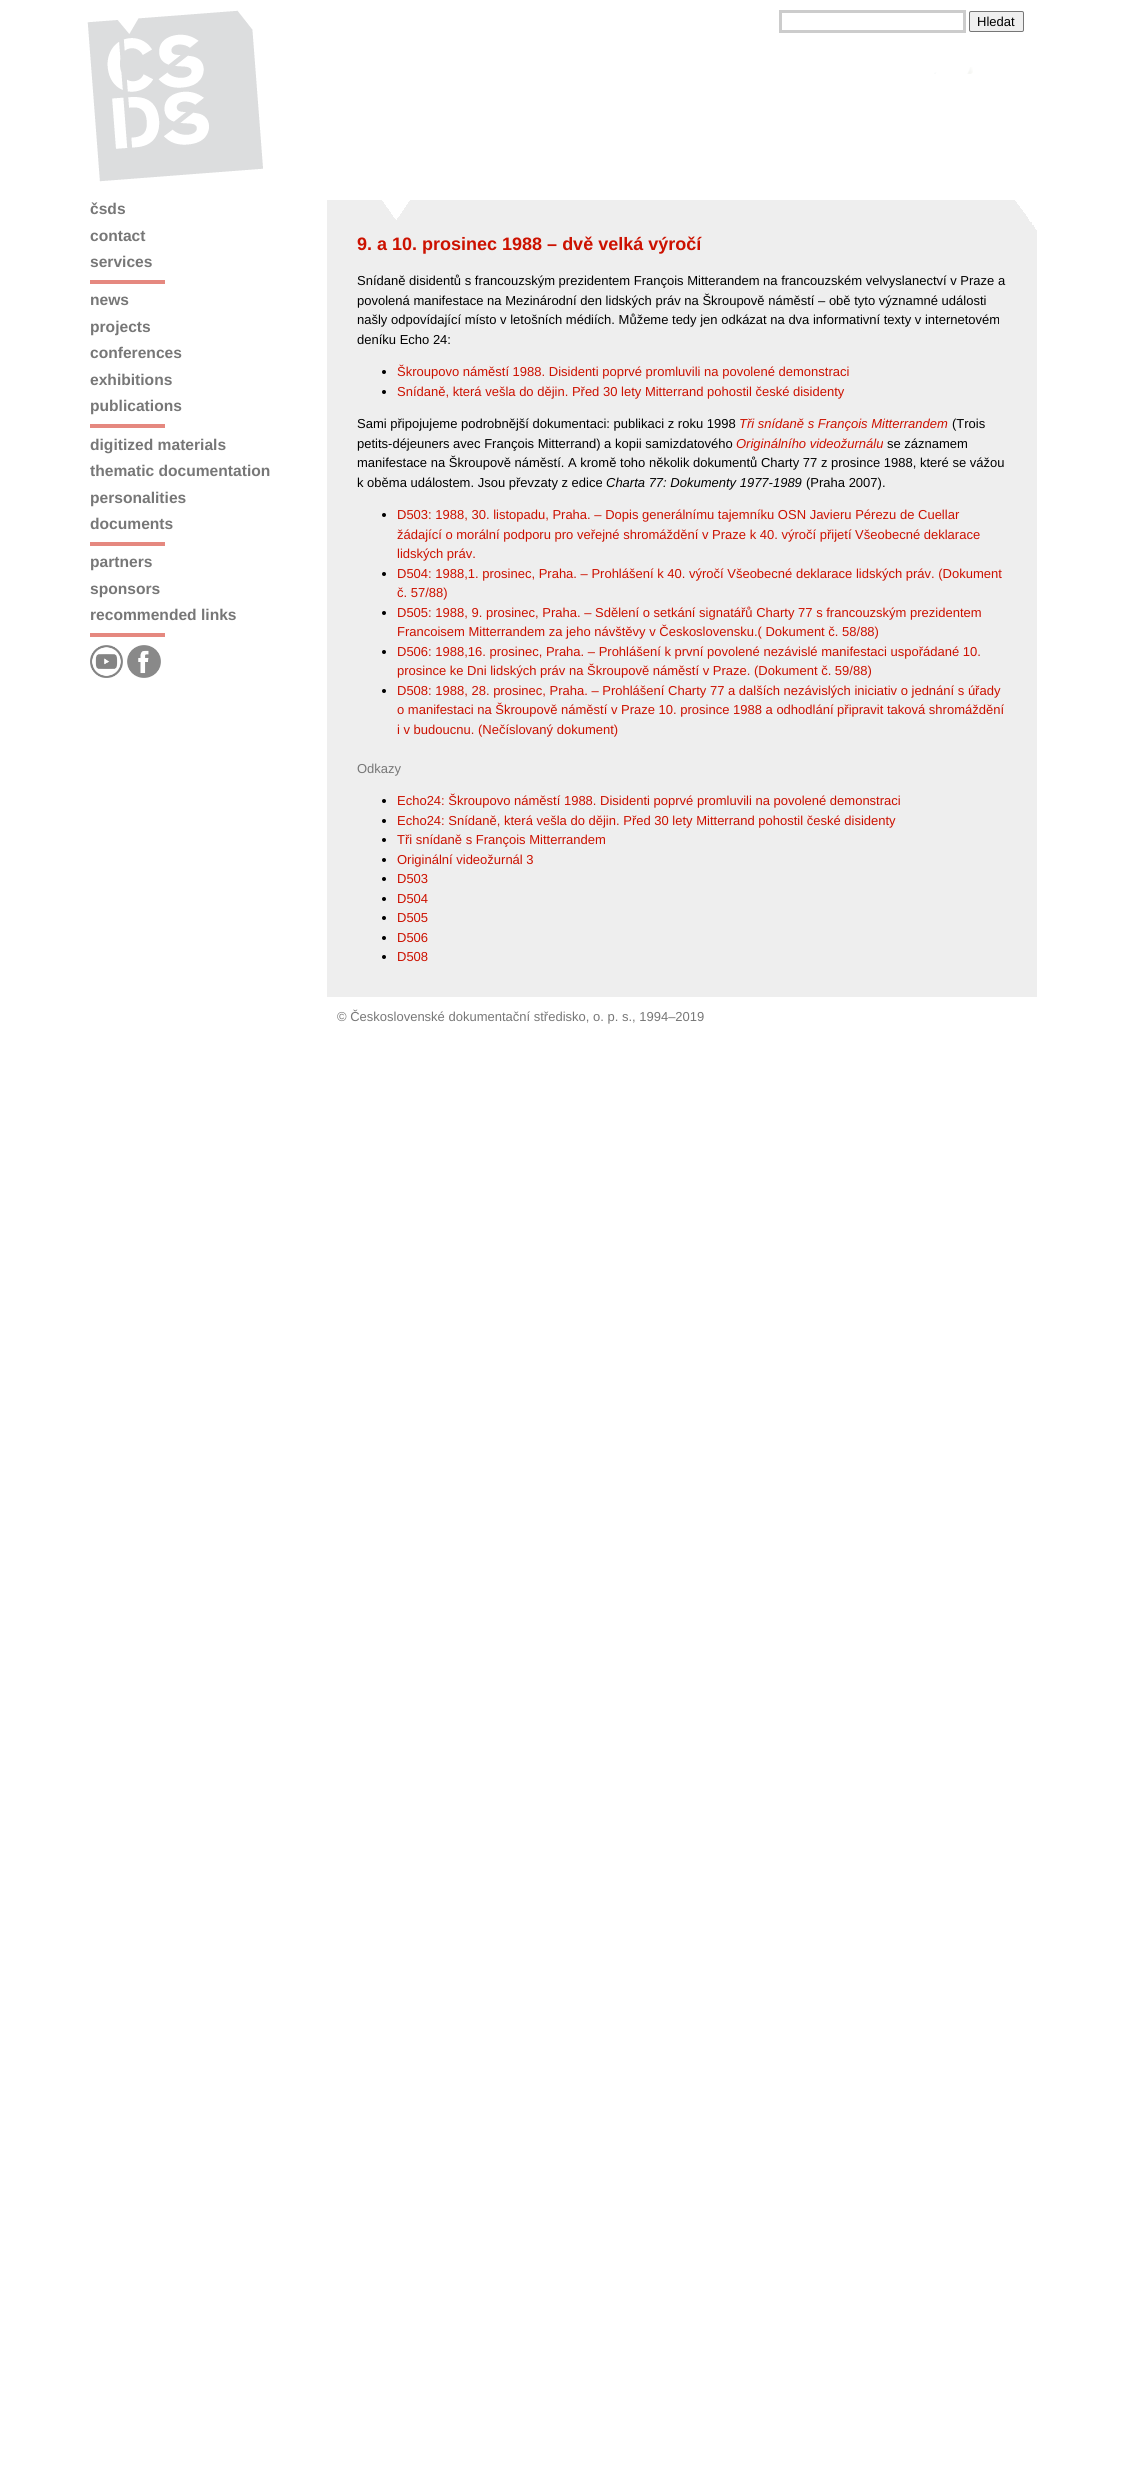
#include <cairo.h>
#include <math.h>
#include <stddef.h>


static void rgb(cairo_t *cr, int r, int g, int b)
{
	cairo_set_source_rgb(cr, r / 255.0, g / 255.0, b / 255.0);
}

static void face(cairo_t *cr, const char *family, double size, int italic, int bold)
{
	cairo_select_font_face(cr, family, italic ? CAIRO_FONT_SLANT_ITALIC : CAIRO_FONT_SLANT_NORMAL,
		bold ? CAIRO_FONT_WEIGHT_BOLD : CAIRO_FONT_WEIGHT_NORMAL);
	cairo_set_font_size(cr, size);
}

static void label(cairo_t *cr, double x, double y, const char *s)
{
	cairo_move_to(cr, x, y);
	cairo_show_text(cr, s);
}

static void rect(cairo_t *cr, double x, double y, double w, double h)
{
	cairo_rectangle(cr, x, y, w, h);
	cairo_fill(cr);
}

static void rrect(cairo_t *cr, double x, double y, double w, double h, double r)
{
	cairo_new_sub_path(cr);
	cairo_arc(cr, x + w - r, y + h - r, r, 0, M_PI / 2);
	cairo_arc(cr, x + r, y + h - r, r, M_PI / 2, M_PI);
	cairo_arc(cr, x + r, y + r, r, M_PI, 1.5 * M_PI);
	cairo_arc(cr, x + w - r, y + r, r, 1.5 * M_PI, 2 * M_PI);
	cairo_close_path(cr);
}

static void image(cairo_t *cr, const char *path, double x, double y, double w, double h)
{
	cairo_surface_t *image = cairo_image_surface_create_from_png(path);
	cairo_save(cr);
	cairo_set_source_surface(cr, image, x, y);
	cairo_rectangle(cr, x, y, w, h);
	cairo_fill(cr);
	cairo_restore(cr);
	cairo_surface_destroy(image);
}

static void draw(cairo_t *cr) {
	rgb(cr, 255, 255, 255);
	cairo_paint(cr);
	image(cr, "image0.png", 934, 67, 39, 7);
	image(cr, "image1.png", 87, 10, 176, 172);
	cairo_rectangle(cr, 780.5, 11.5, 184, 20);
	rgb(cr, 204, 204, 204);
	cairo_set_line_width(cr, 3);
	cairo_stroke(cr);
	rgb(cr, 239, 239, 239);
	rrect(cr, 969.5, 11.5, 54, 20, 1.5);
	cairo_fill_preserve(cr);
	rgb(cr, 118, 118, 118);
	cairo_set_line_width(cr, 1);
	cairo_stroke(cr);
	face(cr, "Liberation Sans", 13, 0, 0);
	rgb(cr, 0, 0, 0);
	label(cr, 977, 26, "Hledat");
	face(cr, "Liberation Sans", 15.6, 0, 1);
	rgb(cr, 119, 119, 119);
	label(cr, 90, 214, "čsds");
	label(cr, 90, 241, "contact");
	label(cr, 90, 267, "services");
	rgb(cr, 229, 136, 127);
	rect(cr, 90, 280, 75, 4);
	rgb(cr, 119, 119, 119);
	label(cr, 90, 305, "news");
	label(cr, 90, 332, "projects");
	label(cr, 90, 358, "conferences");
	label(cr, 90, 385, "exhibitions");
	label(cr, 90, 411, "publications");
	rgb(cr, 229, 136, 127);
	rect(cr, 90, 424, 75, 4);
	rgb(cr, 119, 119, 119);
	label(cr, 90, 450, "digitized materials");
	label(cr, 90, 476, "thematic documentation");
	label(cr, 90, 503, "personalities");
	label(cr, 90, 529, "documents");
	rgb(cr, 229, 136, 127);
	rect(cr, 90, 542, 75, 4);
	rgb(cr, 119, 119, 119);
	label(cr, 90, 567, "partners");
	label(cr, 90, 594, "sponsors");
	label(cr, 90, 620, "recommended links");
	rgb(cr, 229, 136, 127);
	rect(cr, 90, 633, 75, 4);
	image(cr, "image2.png", 90, 645, 33, 33);
	image(cr, "image3.png", 127, 645, 34, 33);
	rgb(cr, 238, 238, 238);
	rect(cr, 327, 200, 710, 797);
	image(cr, "image4.png", 382, 200, 28, 20);
	image(cr, "image5.png", 1015, 200, 22, 30);
	face(cr, "Liberation Sans", 18, 0, 1);
	rgb(cr, 204, 17, 0);
	label(cr, 357, 250, "9. a 10. prosinec 1988 – dvě velká výročí");
	face(cr, "Liberation Sans", 13, 0, 0);
	rgb(cr, 0, 0, 0);
	label(cr, 357, 285, "Snídaně disidentů s francouzským prezidentem François Mitterandem na francouzském velvyslanectví v Praze a");
	label(cr, 357, 305, "povolená manifestace na Mezinárodní den lidských práv na Škroupově náměstí – obě tyto významné události");
	label(cr, 357, 324, "našly odpovídající místo v letošních médiích. Můžeme tedy jen odkázat na dva informativní texty v internetovém");
	label(cr, 357, 344, "deníku Echo 24:");
	cairo_new_path(cr);
	cairo_arc(cr, 384, 372, 2, 0, 2 * M_PI);
	cairo_fill(cr);
	rgb(cr, 204, 17, 0);
	label(cr, 397, 376, "Škroupovo náměstí 1988. Disidenti poprvé promluvili na povolené demonstraci");
	rgb(cr, 0, 0, 0);
	cairo_new_path(cr);
	cairo_arc(cr, 384, 392, 2, 0, 2 * M_PI);
	cairo_fill(cr);
	rgb(cr, 204, 17, 0);
	label(cr, 397, 396, "Snídaně, která vešla do dějin. Před 30 lety Mitterrand pohostil české disidenty");
	rgb(cr, 0, 0, 0);
	label(cr, 357, 428, "Sami připojujeme podrobnější dokumentaci: publikaci z roku 1998");
	face(cr, "Liberation Sans", 13, 1, 0);
	rgb(cr, 204, 17, 0);
	label(cr, 739, 428, "Tři snídaně s François Mitterrandem");
	face(cr, "Liberation Sans", 13, 0, 0);
	rgb(cr, 0, 0, 0);
	label(cr, 952, 428, "(Trois");
	label(cr, 357, 448, "petits-déjeuners avec François Mitterrand) a kopii samizdatového");
	face(cr, "Liberation Sans", 13, 1, 0);
	rgb(cr, 204, 17, 0);
	label(cr, 736, 448, "Originálního videožurnálu");
	face(cr, "Liberation Sans", 13, 0, 0);
	rgb(cr, 0, 0, 0);
	label(cr, 887, 448, "se záznamem");
	label(cr, 357, 467, "manifestace na Škroupově náměstí. A kromě toho několik dokumentů Charty 77 z prosince 1988, které se vážou");
	label(cr, 357, 487, "k oběma událostem. Jsou převzaty z edice");
	face(cr, "Liberation Sans", 13, 1, 0);
	label(cr, 606, 487, "Charta 77: Dokumenty 1977-1989");
	face(cr, "Liberation Sans", 13, 0, 0);
	label(cr, 806, 487, "(Praha 2007).");
	cairo_new_path(cr);
	cairo_arc(cr, 384, 515, 2, 0, 2 * M_PI);
	cairo_fill(cr);
	rgb(cr, 204, 17, 0);
	label(cr, 397, 519, "D503: 1988, 30. listopadu, Praha. – Dopis generálnímu tajemníku OSN Javieru Pérezu de Cuellar");
	label(cr, 397, 539, "žádající o morální podporu pro veřejné shromáždění v Praze k 40. výročí přijetí Všeobecné deklarace");
	label(cr, 397, 558, "lidských práv.");
	rgb(cr, 0, 0, 0);
	cairo_new_path(cr);
	cairo_arc(cr, 384, 574, 2, 0, 2 * M_PI);
	cairo_fill(cr);
	rgb(cr, 204, 17, 0);
	label(cr, 397, 578, "D504: 1988,1. prosinec, Praha. – Prohlášení k 40. výročí Všeobecné deklarace lidských práv. (Dokument");
	label(cr, 397, 597, "č. 57/88)");
	rgb(cr, 0, 0, 0);
	cairo_new_path(cr);
	cairo_arc(cr, 384, 613, 2, 0, 2 * M_PI);
	cairo_fill(cr);
	rgb(cr, 204, 17, 0);
	label(cr, 397, 617, "D505: 1988, 9. prosinec, Praha. – Sdělení o setkání signatářů Charty 77 s francouzským prezidentem");
	label(cr, 397, 636, "Francoisem Mitterrandem za jeho návštěvy v Československu.( Dokument č. 58/88)");
	rgb(cr, 0, 0, 0);
	cairo_new_path(cr);
	cairo_arc(cr, 384, 652, 2, 0, 2 * M_PI);
	cairo_fill(cr);
	rgb(cr, 204, 17, 0);
	label(cr, 397, 656, "D506: 1988,16. prosinec, Praha. – Prohlášení k první povolené nezávislé manifestaci uspořádané 10.");
	label(cr, 397, 675, "prosince ke Dni lidských práv na Škroupově náměstí v Praze. (Dokument č. 59/88)");
	rgb(cr, 0, 0, 0);
	cairo_new_path(cr);
	cairo_arc(cr, 384, 691, 2, 0, 2 * M_PI);
	cairo_fill(cr);
	rgb(cr, 204, 17, 0);
	label(cr, 397, 695, "D508: 1988, 28. prosinec, Praha. – Prohlášení Charty 77 a dalších nezávislých iniciativ o jednání s úřady");
	label(cr, 397, 714, "o manifestaci na Škroupově náměstí v Praze 10. prosince 1988 a odhodlání připravit taková shromáždění");
	label(cr, 397, 734, "i v budoucnu. (Nečíslovaný dokument)");
	rgb(cr, 119, 119, 119);
	label(cr, 357, 773, "Odkazy");
	rgb(cr, 0, 0, 0);
	cairo_new_path(cr);
	cairo_arc(cr, 384, 801, 2, 0, 2 * M_PI);
	cairo_fill(cr);
	rgb(cr, 204, 17, 0);
	label(cr, 397, 805, "Echo24: Škroupovo náměstí 1988. Disidenti poprvé promluvili na povolené demonstraci");
	rgb(cr, 0, 0, 0);
	cairo_new_path(cr);
	cairo_arc(cr, 384, 821, 2, 0, 2 * M_PI);
	cairo_fill(cr);
	rgb(cr, 204, 17, 0);
	label(cr, 397, 825, "Echo24: Snídaně, která vešla do dějin. Před 30 lety Mitterrand pohostil české disidenty");
	rgb(cr, 0, 0, 0);
	cairo_new_path(cr);
	cairo_arc(cr, 384, 840, 2, 0, 2 * M_PI);
	cairo_fill(cr);
	rgb(cr, 204, 17, 0);
	label(cr, 397, 844, "Tři snídaně s François Mitterrandem");
	rgb(cr, 0, 0, 0);
	cairo_new_path(cr);
	cairo_arc(cr, 384, 860, 2, 0, 2 * M_PI);
	cairo_fill(cr);
	rgb(cr, 204, 17, 0);
	label(cr, 397, 864, "Originální videožurnál 3");
	rgb(cr, 0, 0, 0);
	cairo_new_path(cr);
	cairo_arc(cr, 384, 879, 2, 0, 2 * M_PI);
	cairo_fill(cr);
	rgb(cr, 204, 17, 0);
	label(cr, 397, 883, "D503");
	rgb(cr, 0, 0, 0);
	cairo_new_path(cr);
	cairo_arc(cr, 384, 899, 2, 0, 2 * M_PI);
	cairo_fill(cr);
	rgb(cr, 204, 17, 0);
	label(cr, 397, 903, "D504");
	rgb(cr, 0, 0, 0);
	cairo_new_path(cr);
	cairo_arc(cr, 384, 918, 2, 0, 2 * M_PI);
	cairo_fill(cr);
	rgb(cr, 204, 17, 0);
	label(cr, 397, 922, "D505");
	rgb(cr, 0, 0, 0);
	cairo_new_path(cr);
	cairo_arc(cr, 384, 938, 2, 0, 2 * M_PI);
	cairo_fill(cr);
	rgb(cr, 204, 17, 0);
	label(cr, 397, 942, "D506");
	rgb(cr, 0, 0, 0);
	cairo_new_path(cr);
	cairo_arc(cr, 384, 957, 2, 0, 2 * M_PI);
	cairo_fill(cr);
	rgb(cr, 204, 17, 0);
	label(cr, 397, 961, "D508");
	rgb(cr, 119, 119, 119);
	label(cr, 337, 1021, "© Československé dokumentační středisko, o. p. s., 1994–2019");
}

int main(void) {
	cairo_surface_t *surface = cairo_image_surface_create(CAIRO_FORMAT_RGB24, 1124, 2465);
	cairo_t *cr = cairo_create(surface);
	cairo_font_options_t *options = cairo_font_options_create();
	cairo_font_options_set_hint_metrics(options, CAIRO_HINT_METRICS_OFF);
	cairo_font_options_set_hint_style(options, CAIRO_HINT_STYLE_NONE);
	cairo_set_font_options(cr, options);
	cairo_set_miter_limit(cr, 4);
	draw(cr);
	cairo_surface_write_to_png(surface, "render.png");
	cairo_font_options_destroy(options);
	cairo_destroy(cr);
	cairo_surface_destroy(surface);
	return 0;
}
